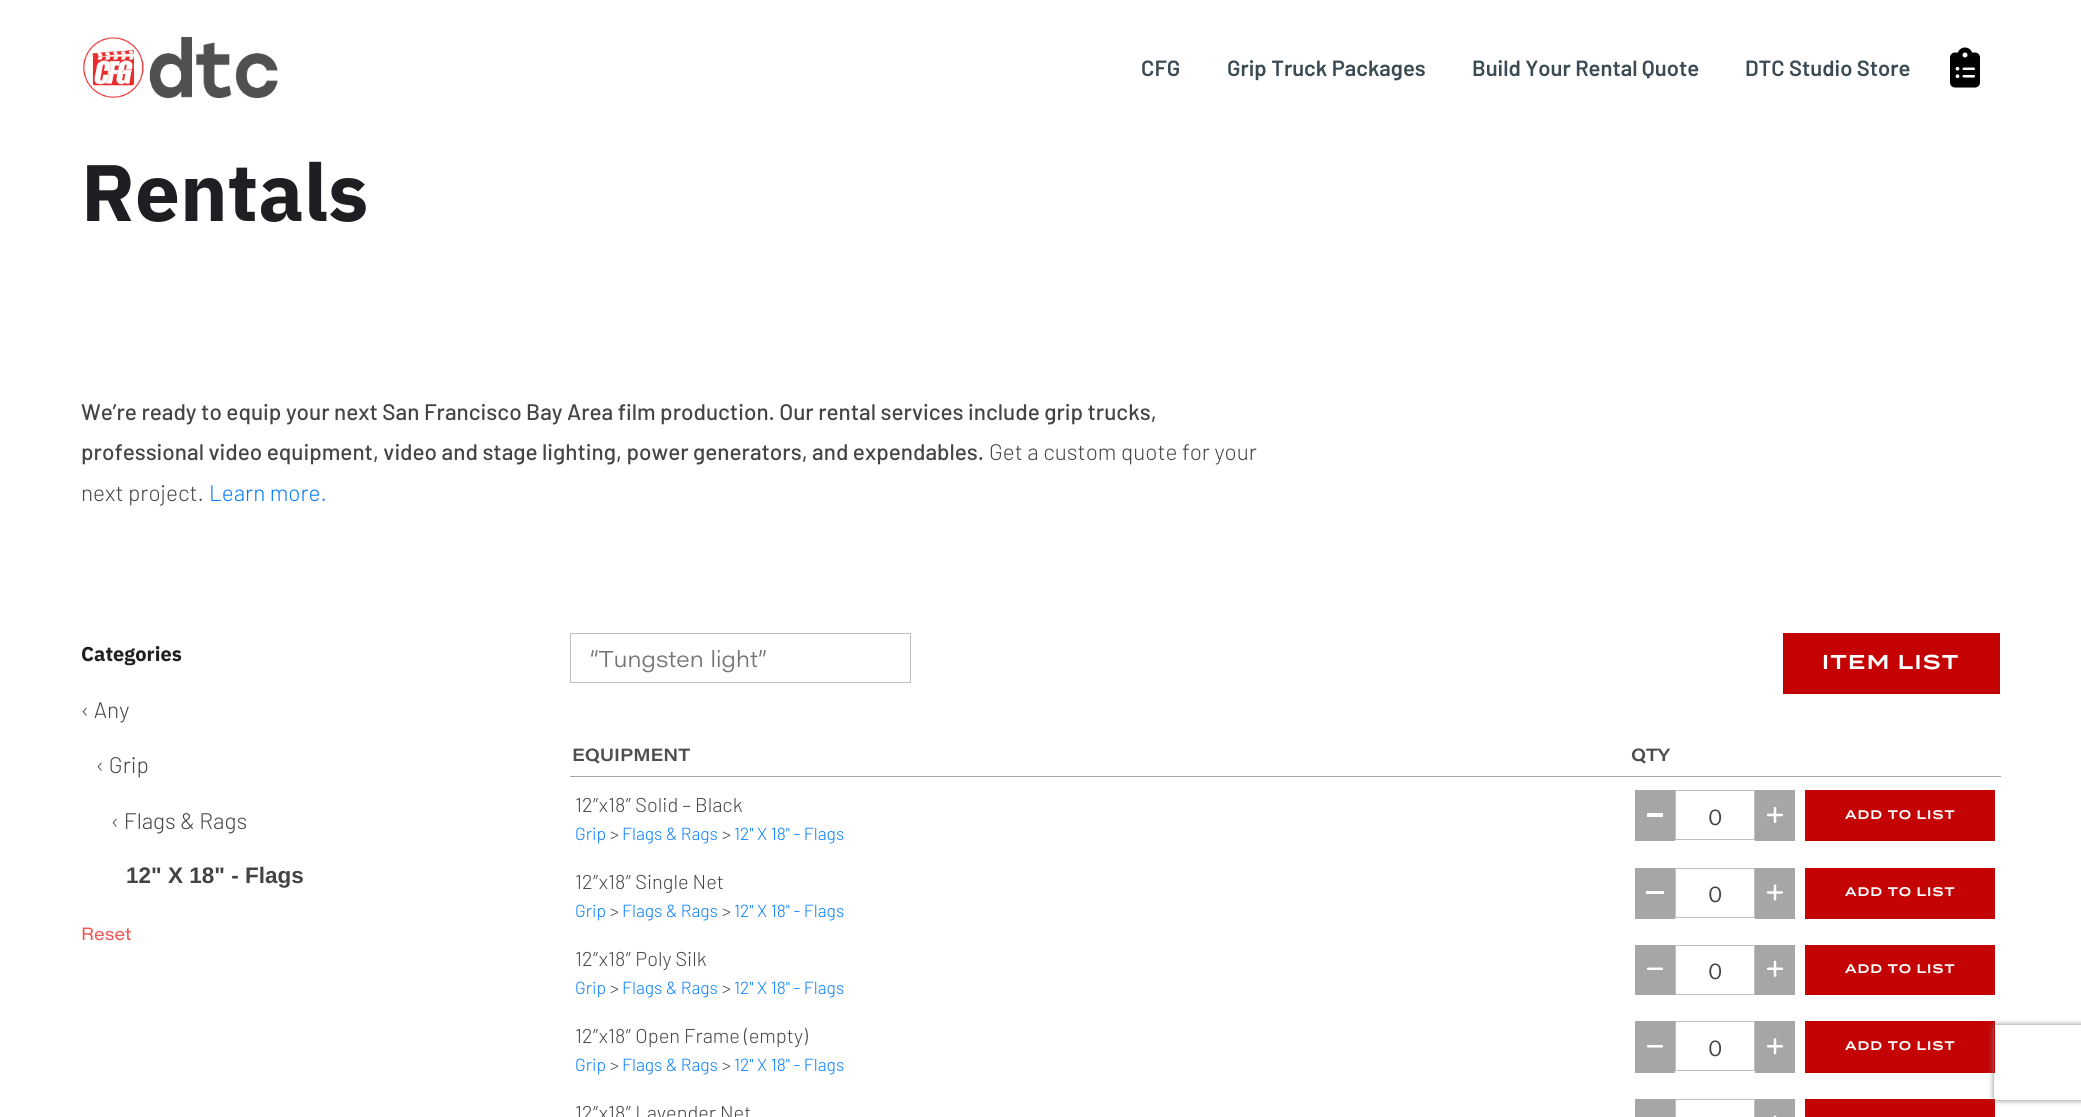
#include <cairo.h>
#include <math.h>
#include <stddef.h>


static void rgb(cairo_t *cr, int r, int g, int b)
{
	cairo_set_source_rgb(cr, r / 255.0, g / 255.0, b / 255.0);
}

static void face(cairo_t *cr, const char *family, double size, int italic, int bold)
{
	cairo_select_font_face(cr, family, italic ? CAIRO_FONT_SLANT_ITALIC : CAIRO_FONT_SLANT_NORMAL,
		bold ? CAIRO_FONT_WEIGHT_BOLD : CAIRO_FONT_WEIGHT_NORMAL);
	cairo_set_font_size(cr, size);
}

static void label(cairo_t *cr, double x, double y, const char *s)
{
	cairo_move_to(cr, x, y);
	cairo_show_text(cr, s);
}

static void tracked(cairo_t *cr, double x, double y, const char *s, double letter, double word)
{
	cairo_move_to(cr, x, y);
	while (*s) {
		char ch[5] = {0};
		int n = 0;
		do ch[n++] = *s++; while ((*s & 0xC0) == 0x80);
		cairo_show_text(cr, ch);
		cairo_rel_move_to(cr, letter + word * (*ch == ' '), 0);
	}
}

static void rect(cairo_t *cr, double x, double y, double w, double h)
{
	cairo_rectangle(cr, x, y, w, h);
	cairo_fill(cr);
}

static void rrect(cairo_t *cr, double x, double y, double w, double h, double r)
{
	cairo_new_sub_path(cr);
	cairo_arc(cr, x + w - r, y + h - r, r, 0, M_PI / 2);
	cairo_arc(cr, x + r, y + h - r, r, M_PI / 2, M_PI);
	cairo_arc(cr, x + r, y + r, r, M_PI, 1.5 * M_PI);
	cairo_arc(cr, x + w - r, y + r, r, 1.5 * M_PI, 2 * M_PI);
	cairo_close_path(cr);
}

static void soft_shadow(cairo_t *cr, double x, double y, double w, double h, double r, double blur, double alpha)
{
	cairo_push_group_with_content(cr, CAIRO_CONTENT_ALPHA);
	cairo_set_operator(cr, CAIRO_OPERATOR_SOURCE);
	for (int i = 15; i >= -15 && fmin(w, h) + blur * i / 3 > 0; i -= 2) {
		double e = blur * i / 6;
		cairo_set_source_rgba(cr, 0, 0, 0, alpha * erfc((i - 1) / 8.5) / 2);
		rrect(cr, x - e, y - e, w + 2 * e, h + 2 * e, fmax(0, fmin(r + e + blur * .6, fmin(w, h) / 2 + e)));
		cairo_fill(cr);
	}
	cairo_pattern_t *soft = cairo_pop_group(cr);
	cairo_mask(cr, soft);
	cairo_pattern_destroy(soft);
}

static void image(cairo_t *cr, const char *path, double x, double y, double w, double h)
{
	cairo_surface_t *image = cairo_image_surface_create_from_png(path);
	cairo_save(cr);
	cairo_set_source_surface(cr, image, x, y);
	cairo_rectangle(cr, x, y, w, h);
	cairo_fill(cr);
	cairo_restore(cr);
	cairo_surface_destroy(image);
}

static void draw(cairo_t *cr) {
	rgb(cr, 255, 255, 255);
	cairo_paint(cr);
	image(cr, "image0.png", 82, 36, 196, 63);
	face(cr, "Barlow SemiBold", 22, 0, 0);
	rgb(cr, 60, 75, 83);
	label(cr, 1141, 76, "CFG");
	label(cr, 1227, 76, "Grip Truck Packages");
	label(cr, 1472, 76, "Build Your Rental Quote");
	label(cr, 1745, 76, "DTC Studio Store");
	image(cr, "image1.png", 1950, 47, 30, 41);
	face(cr, "IBM Plex Sans", 80, 0, 1);
	rgb(cr, 30, 31, 34);
	label(cr, 81, 221, "Rentals");
	face(cr, "Barlow Medium", 22.5, 0, 0);
	rgb(cr, 68, 68, 68);
	label(cr, 81, 420, "We’re ready to equip your next San Francisco Bay Area film production. Our rental services include grip trucks,");
	label(cr, 81, 460, "professional video equipment, video and stage lighting, power generators, and expendables.");
	face(cr, "Barlow Light", 22.5, 0, 0);
	label(cr, 989, 460, "Get a custom quote for your");
	label(cr, 81, 501, "next project.");
	rgb(cr, 0, 123, 255);
	label(cr, 209, 501, "Learn more.");
	face(cr, "IBM Plex Sans", 20, 0, 1);
	rgb(cr, 30, 31, 34);
	label(cr, 81, 661, "Categories");
	face(cr, "Barlow Light", 22.5, 0, 0);
	rgb(cr, 68, 68, 68);
	label(cr, 81, 718, "‹ Any");
	label(cr, 96, 773, "‹ Grip");
	label(cr, 111, 829, "‹ Flags & Rags");
	face(cr, "Liberation Sans", 22.5, 0, 1);
	label(cr, 126, 883, "12\" X 18\" - Flags");
	face(cr, "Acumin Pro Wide", 17.5, 0, 0);
	rgb(cr, 235, 87, 87);
	label(cr, 81, 940, "Reset");
	cairo_rectangle(cr, 570.5, 633.5, 340, 49);
	rgb(cr, 192, 192, 192);
	cairo_set_line_width(cr, 1);
	cairo_stroke(cr);
	face(cr, "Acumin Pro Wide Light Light", 22.5, 0, 0);
	rgb(cr, 117, 117, 117);
	label(cr, 590, 667, "“Tungsten light”");
	rgb(cr, 197, 2, 3);
	rect(cr, 1783, 633, 217, 61);
	face(cr, "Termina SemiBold", 20, 0, 0);
	rgb(cr, 255, 255, 255);
	tracked(cr, 1822, 669, "ITEM LIST", 1.5, 0);
	rgb(cr, 166, 166, 166);
	rect(cr, 570, 776, 1431, 1);
	face(cr, "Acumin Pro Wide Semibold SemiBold", 17.5, 0, 0);
	rgb(cr, 79, 78, 78);
	label(cr, 572, 761, "EQUIPMENT");
	label(cr, 1631, 761, "QTY");
	face(cr, "Barlow Light", 20, 0, 0);
	rgb(cr, 68, 68, 68);
	label(cr, 575, 812, "12″x18″ Solid – Black");
	face(cr, "Barlow Light", 17.5, 0, 0);
	rgb(cr, 0, 123, 255);
	label(cr, 575, 840, "Grip");
	rgb(cr, 68, 68, 68);
	label(cr, 610, 840, ">");
	rgb(cr, 0, 123, 255);
	label(cr, 622, 840, "Flags & Rags");
	rgb(cr, 68, 68, 68);
	label(cr, 722, 840, ">");
	rgb(cr, 0, 123, 255);
	label(cr, 734, 840, "12\" X 18\" - Flags");
	rgb(cr, 166, 166, 166);
	rect(cr, 1635, 790, 40, 51);
	rgb(cr, 255, 255, 255);
	rect(cr, 1647, 813, 16, 4);
	cairo_rectangle(cr, 1675.5, 790.5, 79, 49);
	rgb(cr, 192, 192, 192);
	cairo_stroke(cr);
	face(cr, "Acumin Pro Wide Light Light", 22.5, 0, 0);
	rgb(cr, 68, 68, 68);
	label(cr, 1708, 825, "0");
	rgb(cr, 166, 166, 166);
	rect(cr, 1755, 790, 40, 51);
	image(cr, "image2.png", 1767, 807, 16, 16);
	rgb(cr, 195, 3, 4);
	rect(cr, 1805, 790, 190, 51);
	face(cr, "Termina SemiBold", 12.5, 0, 0);
	rgb(cr, 255, 255, 255);
	tracked(cr, 1845, 819, "ADD TO LIST", 1, 0);
	face(cr, "Barlow Light", 20, 0, 0);
	rgb(cr, 68, 68, 68);
	label(cr, 575, 889, "12″x18″ Single Net");
	face(cr, "Barlow Light", 17.5, 0, 0);
	rgb(cr, 0, 123, 255);
	label(cr, 575, 917, "Grip");
	rgb(cr, 68, 68, 68);
	label(cr, 610, 917, ">");
	rgb(cr, 0, 123, 255);
	label(cr, 622, 917, "Flags & Rags");
	rgb(cr, 68, 68, 68);
	label(cr, 722, 917, ">");
	rgb(cr, 0, 123, 255);
	label(cr, 734, 917, "12\" X 18\" - Flags");
	rgb(cr, 166, 166, 166);
	rect(cr, 1635, 868, 40, 51);
	rgb(cr, 255, 255, 255);
	rect(cr, 1646, 891, 18, 3);
	cairo_rectangle(cr, 1675.5, 868.5, 79, 49);
	rgb(cr, 192, 192, 192);
	cairo_stroke(cr);
	face(cr, "Acumin Pro Wide Light Light", 22.5, 0, 0);
	rgb(cr, 68, 68, 68);
	label(cr, 1708, 902, "0");
	rgb(cr, 166, 166, 166);
	rect(cr, 1755, 868, 40, 51);
	image(cr, "image3.png", 1766, 884, 18, 17);
	rgb(cr, 195, 3, 4);
	rect(cr, 1805, 868, 190, 51);
	face(cr, "Termina SemiBold", 12.5, 0, 0);
	rgb(cr, 255, 255, 255);
	tracked(cr, 1845, 896, "ADD TO LIST", 1, 0);
	face(cr, "Barlow Light", 20, 0, 0);
	rgb(cr, 68, 68, 68);
	label(cr, 575, 966, "12″x18″ Poly Silk");
	face(cr, "Barlow Light", 17.5, 0, 0);
	rgb(cr, 0, 123, 255);
	label(cr, 575, 994, "Grip");
	rgb(cr, 68, 68, 68);
	label(cr, 610, 994, ">");
	rgb(cr, 0, 123, 255);
	label(cr, 622, 994, "Flags & Rags");
	rgb(cr, 68, 68, 68);
	label(cr, 722, 994, ">");
	rgb(cr, 0, 123, 255);
	label(cr, 734, 994, "12\" X 18\" - Flags");
	rgb(cr, 166, 166, 166);
	rect(cr, 1635, 945, 40, 50);
	image(cr, "image4.png", 1646, 967, 18, 3);
	cairo_rectangle(cr, 1675.5, 945.5, 79, 49);
	rgb(cr, 192, 192, 192);
	cairo_stroke(cr);
	face(cr, "Acumin Pro Wide Light Light", 22.5, 0, 0);
	rgb(cr, 68, 68, 68);
	label(cr, 1708, 979, "0");
	rgb(cr, 166, 166, 166);
	rect(cr, 1755, 945, 40, 50);
	image(cr, "image5.png", 1766, 960, 18, 17);
	rgb(cr, 195, 3, 4);
	rect(cr, 1805, 945, 190, 50);
	face(cr, "Termina SemiBold", 12.5, 0, 0);
	rgb(cr, 255, 255, 255);
	tracked(cr, 1845, 973, "ADD TO LIST", 1, 0);
	face(cr, "Barlow Light", 20, 0, 0);
	rgb(cr, 68, 68, 68);
	label(cr, 575, 1043, "12″x18″ Open Frame (empty)");
	face(cr, "Barlow Light", 17.5, 0, 0);
	rgb(cr, 0, 123, 255);
	label(cr, 575, 1071, "Grip");
	rgb(cr, 68, 68, 68);
	label(cr, 610, 1071, ">");
	rgb(cr, 0, 123, 255);
	label(cr, 622, 1071, "Flags & Rags");
	rgb(cr, 68, 68, 68);
	label(cr, 722, 1071, ">");
	rgb(cr, 0, 123, 255);
	label(cr, 734, 1071, "12\" X 18\" - Flags");
	rgb(cr, 166, 166, 166);
	rect(cr, 1635, 1021, 40, 52);
	image(cr, "image6.png", 1646, 1045, 18, 3);
	cairo_rectangle(cr, 1675.5, 1021.5, 79, 49);
	rgb(cr, 192, 192, 192);
	cairo_stroke(cr);
	face(cr, "Acumin Pro Wide Light Light", 22.5, 0, 0);
	rgb(cr, 68, 68, 68);
	label(cr, 1708, 1056, "0");
	rgb(cr, 166, 166, 166);
	rect(cr, 1755, 1021, 40, 52);
	image(cr, "image7.png", 1766, 1038, 18, 17);
	rgb(cr, 195, 3, 4);
	rect(cr, 1805, 1021, 190, 52);
	face(cr, "Termina SemiBold", 12.5, 0, 0);
	rgb(cr, 255, 255, 255);
	tracked(cr, 1845, 1050, "ADD TO LIST", 1, 0);
	face(cr, "Barlow Light", 20, 0, 0);
	rgb(cr, 68, 68, 68);
	label(cr, 575, 1120, "12″x18″ Lavender Net");
	rgb(cr, 166, 166, 166);
	rect(cr, 1635, 1099, 40, 18);
	cairo_rectangle(cr, 1675.5, 1099.5, 79, 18);
	rgb(cr, 192, 192, 192);
	cairo_stroke(cr);
	rgb(cr, 166, 166, 166);
	rect(cr, 1755, 1099, 40, 18);
	image(cr, "image8.png", 1773, 1115, 4, 2);
	rgb(cr, 195, 3, 4);
	rect(cr, 1805, 1099, 190, 18);
	cairo_save(cr);
	cairo_set_fill_rule(cr, CAIRO_FILL_RULE_EVEN_ODD);
	cairo_new_path(cr);
	cairo_move_to(cr, 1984, 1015);
	cairo_line_to(cr, 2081, 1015);
	cairo_line_to(cr, 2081, 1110);
	cairo_line_to(cr, 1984, 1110);
	cairo_close_path(cr);
	cairo_move_to(cr, 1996.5, 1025);
	cairo_line_to(cr, 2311.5, 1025);
	cairo_curve_to(cr, 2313, 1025, 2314, 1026, 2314, 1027.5);
	cairo_line_to(cr, 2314, 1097.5);
	cairo_curve_to(cr, 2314, 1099, 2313, 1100, 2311.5, 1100);
	cairo_line_to(cr, 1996.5, 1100);
	cairo_curve_to(cr, 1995, 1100, 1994, 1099, 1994, 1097.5);
	cairo_line_to(cr, 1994, 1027.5);
	cairo_curve_to(cr, 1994, 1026, 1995, 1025, 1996.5, 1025);
	cairo_close_path(cr);
	cairo_clip(cr);
	rgb(cr, 128, 128, 128);
	soft_shadow(cr, 1994, 1025, 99, 75, 2.5, 3, 1);
	cairo_restore(cr);
}

int main(void) {
	cairo_surface_t *surface = cairo_image_surface_create(CAIRO_FORMAT_RGB24, 2081, 1117);
	cairo_t *cr = cairo_create(surface);
	cairo_font_options_t *options = cairo_font_options_create();
	cairo_font_options_set_hint_metrics(options, CAIRO_HINT_METRICS_OFF);
	cairo_font_options_set_hint_style(options, CAIRO_HINT_STYLE_NONE);
	cairo_set_font_options(cr, options);
	cairo_set_miter_limit(cr, 4);
	draw(cr);
	cairo_surface_write_to_png(surface, "render.png");
	cairo_font_options_destroy(options);
	cairo_destroy(cr);
	cairo_surface_destroy(surface);
	return 0;
}
